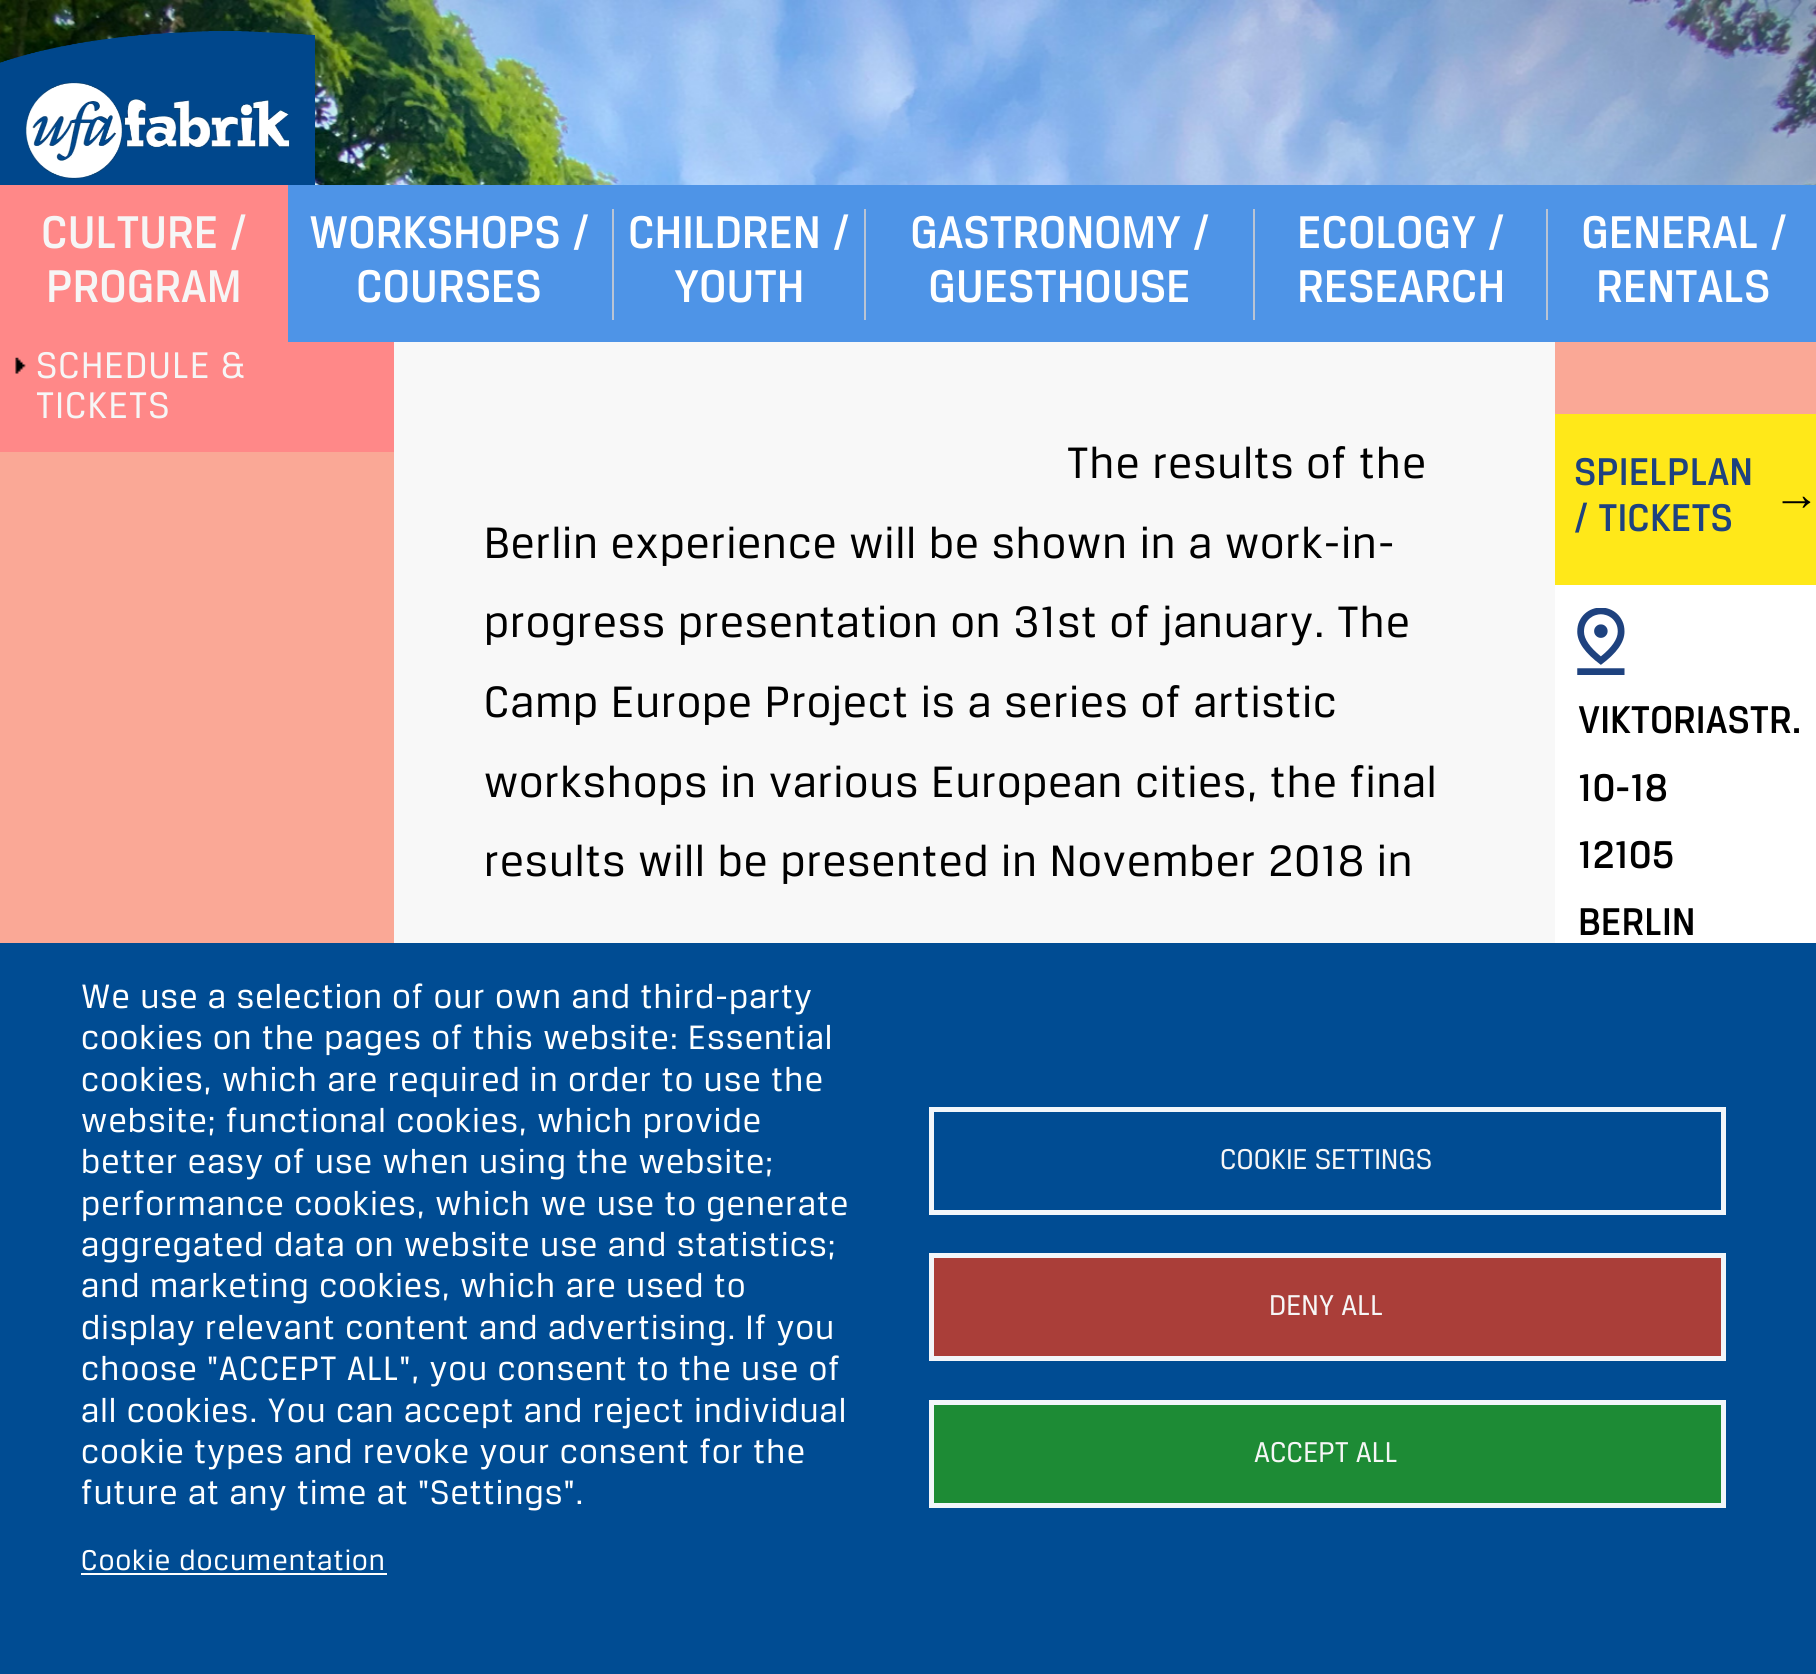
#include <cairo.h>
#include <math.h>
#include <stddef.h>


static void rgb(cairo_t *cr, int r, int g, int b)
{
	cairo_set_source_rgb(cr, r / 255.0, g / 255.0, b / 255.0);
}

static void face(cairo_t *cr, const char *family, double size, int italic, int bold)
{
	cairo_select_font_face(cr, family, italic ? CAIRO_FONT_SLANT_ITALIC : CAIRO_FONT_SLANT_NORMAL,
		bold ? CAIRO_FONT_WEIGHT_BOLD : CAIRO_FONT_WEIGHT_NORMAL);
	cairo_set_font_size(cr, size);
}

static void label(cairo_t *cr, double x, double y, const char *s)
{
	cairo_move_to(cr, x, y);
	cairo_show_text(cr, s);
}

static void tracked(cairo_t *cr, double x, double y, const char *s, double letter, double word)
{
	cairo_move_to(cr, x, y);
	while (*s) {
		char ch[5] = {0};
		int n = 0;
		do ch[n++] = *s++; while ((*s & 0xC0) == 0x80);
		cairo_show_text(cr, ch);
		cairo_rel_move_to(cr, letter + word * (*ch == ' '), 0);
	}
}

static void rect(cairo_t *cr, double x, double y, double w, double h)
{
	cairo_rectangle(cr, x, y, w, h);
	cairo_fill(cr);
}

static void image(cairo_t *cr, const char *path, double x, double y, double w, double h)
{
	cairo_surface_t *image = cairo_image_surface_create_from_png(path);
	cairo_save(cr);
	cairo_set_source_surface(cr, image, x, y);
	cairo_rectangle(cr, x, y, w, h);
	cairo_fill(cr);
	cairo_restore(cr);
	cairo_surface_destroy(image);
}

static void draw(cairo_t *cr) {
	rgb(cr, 248, 248, 248);
	cairo_paint(cr);
	image(cr, "image0.png", 0, 0, 1816, 185);
	image(cr, "image1.png", 0, 31, 315, 154);
	rgb(cr, 78, 148, 231);
	rect(cr, 288, 185, 1528, 157);
	rgb(cr, 255, 136, 136);
	rect(cr, 286, 185, 2, 157);
	rect(cr, 0, 185, 286, 157);
	face(cr, "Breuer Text", 46.8, 0, 1);
	rgb(cr, 246, 246, 246);
	tracked(cr, 41, 248, "CULTURE /", 1.1, 0);
	tracked(cr, 46, 302, "PROGRAM", 1.1, 0);
	rgb(cr, 255, 255, 255);
	tracked(cr, 309, 248, "WORKSHOPS /", 1.1, 0);
	tracked(cr, 356, 302, "COURSES", 1.1, 0);
	rgb(cr, 186, 196, 212);
	rect(cr, 612, 209, 2, 111);
	rgb(cr, 255, 255, 255);
	tracked(cr, 628, 248, "CHILDREN /", 1.1, 0);
	tracked(cr, 674, 302, "YOUTH", 1.1, 0);
	rgb(cr, 186, 196, 212);
	rect(cr, 864, 209, 2, 111);
	rgb(cr, 255, 255, 255);
	tracked(cr, 910, 248, "GASTRONOMY /", 1.1, 0);
	tracked(cr, 928, 302, "GUESTHOUSE", 1.1, 0);
	rgb(cr, 186, 196, 212);
	rect(cr, 1253, 209, 2, 111);
	rgb(cr, 255, 255, 255);
	tracked(cr, 1297, 248, "ECOLOGY /", 1.1, 0);
	tracked(cr, 1297, 302, "RESEARCH", 1.1, 0);
	rgb(cr, 186, 196, 212);
	rect(cr, 1546, 209, 2, 111);
	rgb(cr, 255, 255, 255);
	tracked(cr, 1581, 248, "GENERAL /", 1.1, 0);
	tracked(cr, 1596, 302, "RENTALS", 1.1, 0);
	rgb(cr, 250, 168, 150);
	rect(cr, 0, 452, 394, 491);
	rgb(cr, 255, 136, 136);
	rect(cr, 0, 342, 394, 110);
	image(cr, "image2.png", 15, 357, 11, 17);
	face(cr, "Breuer Text", 39.5, 0, 0);
	rgb(cr, 246, 246, 246);
	tracked(cr, 36, 378, "SCHEDULE &", 1.1, 0);
	tracked(cr, 36, 418, "TICKETS", 1.1, 0);
	face(cr, "Breuer Text", 46.8, 0, 0);
	rgb(cr, 0, 0, 0);
	tracked(cr, 1067, 478, "The results of the", 1.1, 0);
	tracked(cr, 484, 558, "Berlin experience will be shown in a work-in-", 1.1, 0);
	tracked(cr, 484, 637, "progress presentation on 31st of january. The", 1.1, 0);
	tracked(cr, 484, 717, "Camp Europe Project is a series of artistic", 1.1, 0);
	tracked(cr, 484, 797, "workshops in various European cities, the final", 1.1, 0);
	tracked(cr, 484, 876, "results will be presented in November 2018 in", 1.1, 0);
	rgb(cr, 250, 168, 150);
	rect(cr, 1555, 342, 261, 72);
	rgb(cr, 255, 232, 25);
	rect(cr, 1555, 414, 261, 171);
	face(cr, "Breuer Text", 39.5, 0, 1);
	rgb(cr, 30, 66, 127);
	tracked(cr, 1574, 485, "SPIELPLAN", 1.1, 0);
	tracked(cr, 1574, 531, "/ TICKETS", 1.1, 0);
	face(cr, "Liberation Serif", 46.8, 0, 0);
	rgb(cr, 0, 0, 0);
	tracked(cr, 1773, 510, "→", 1.1, 0);
	rgb(cr, 255, 255, 255);
	rect(cr, 1555, 585, 261, 358);
	image(cr, "image3.png", 1577, 608, 48, 67);
	face(cr, "Breuer Text", 39.5, 0, 1);
	rgb(cr, 0, 0, 0);
	tracked(cr, 1578, 733, "VIKTORIASTR.", 1.1, 0);
	tracked(cr, 1578, 801, "10-18", 1.1, 0);
	tracked(cr, 1578, 868, "12105", 1.1, 0);
	tracked(cr, 1578, 935, "BERLIN", 1.1, 0);
	rgb(cr, 0, 76, 147);
	rect(cr, 0, 943, 1816, 731);
	face(cr, "Breuer Text", 36, 0, 0);
	rgb(cr, 255, 255, 255);
	tracked(cr, 81, 1008, "We use a selection of our own and third-party", 1.1, 0);
	tracked(cr, 81, 1049, "cookies on the pages of this website: Essential", 1.1, 0);
	tracked(cr, 81, 1091, "cookies, which are required in order to use the", 1.1, 0);
	tracked(cr, 81, 1132, "website; functional cookies, which provide", 1.1, 0);
	tracked(cr, 81, 1173, "better easy of use when using the website;", 1.1, 0);
	tracked(cr, 81, 1215, "performance cookies, which we use to generate", 1.1, 0);
	tracked(cr, 81, 1256, "aggregated data on website use and statistics;", 1.1, 0);
	tracked(cr, 81, 1297, "and marketing cookies, which are used to", 1.1, 0);
	tracked(cr, 81, 1339, "display relevant content and advertising. If you", 1.1, 0);
	tracked(cr, 81, 1380, "choose \"ACCEPT ALL\", you consent to the use of", 1.1, 0);
	tracked(cr, 81, 1422, "all cookies. You can accept and reject individual", 1.1, 0);
	tracked(cr, 81, 1463, "cookie types and revoke your consent for the", 1.1, 0);
	tracked(cr, 81, 1504, "future at any time at \"Settings\".", 1.1, 0);
	face(cr, "Breuer Text", 30.5, 0, 0);
	tracked(cr, 81, 1570, "Cookie documentation", 1.1, 0);
	rect(cr, 81, 1573, 306, 2);
	cairo_rectangle(cr, 931.5, 1109.5, 792, 103);
	rgb(cr, 242, 246, 250);
	cairo_set_line_width(cr, 5);
	cairo_stroke(cr);
	rgb(cr, 246, 246, 246);
	label(cr, 1220, 1169, "COOKIE SETTINGS");
	rgb(cr, 170, 62, 57);
	cairo_rectangle(cr, 931.5, 1255.5, 792, 103);
	cairo_fill_preserve(cr);
	rgb(cr, 242, 246, 250);
	cairo_stroke(cr);
	rgb(cr, 246, 246, 246);
	label(cr, 1269, 1315, "DENY ALL");
	rgb(cr, 29, 139, 53);
	cairo_rectangle(cr, 931.5, 1402.5, 792, 103);
	cairo_fill_preserve(cr);
	rgb(cr, 242, 246, 250);
	cairo_stroke(cr);
	rgb(cr, 246, 246, 246);
	label(cr, 1254, 1462, "ACCEPT ALL");
}

int main(void) {
	cairo_surface_t *surface = cairo_image_surface_create(CAIRO_FORMAT_RGB24, 1816, 1674);
	cairo_t *cr = cairo_create(surface);
	cairo_font_options_t *options = cairo_font_options_create();
	cairo_font_options_set_hint_metrics(options, CAIRO_HINT_METRICS_OFF);
	cairo_font_options_set_hint_style(options, CAIRO_HINT_STYLE_NONE);
	cairo_set_font_options(cr, options);
	cairo_set_miter_limit(cr, 4);
	draw(cr);
	cairo_surface_write_to_png(surface, "render.png");
	cairo_font_options_destroy(options);
	cairo_destroy(cr);
	cairo_surface_destroy(surface);
	return 0;
}
